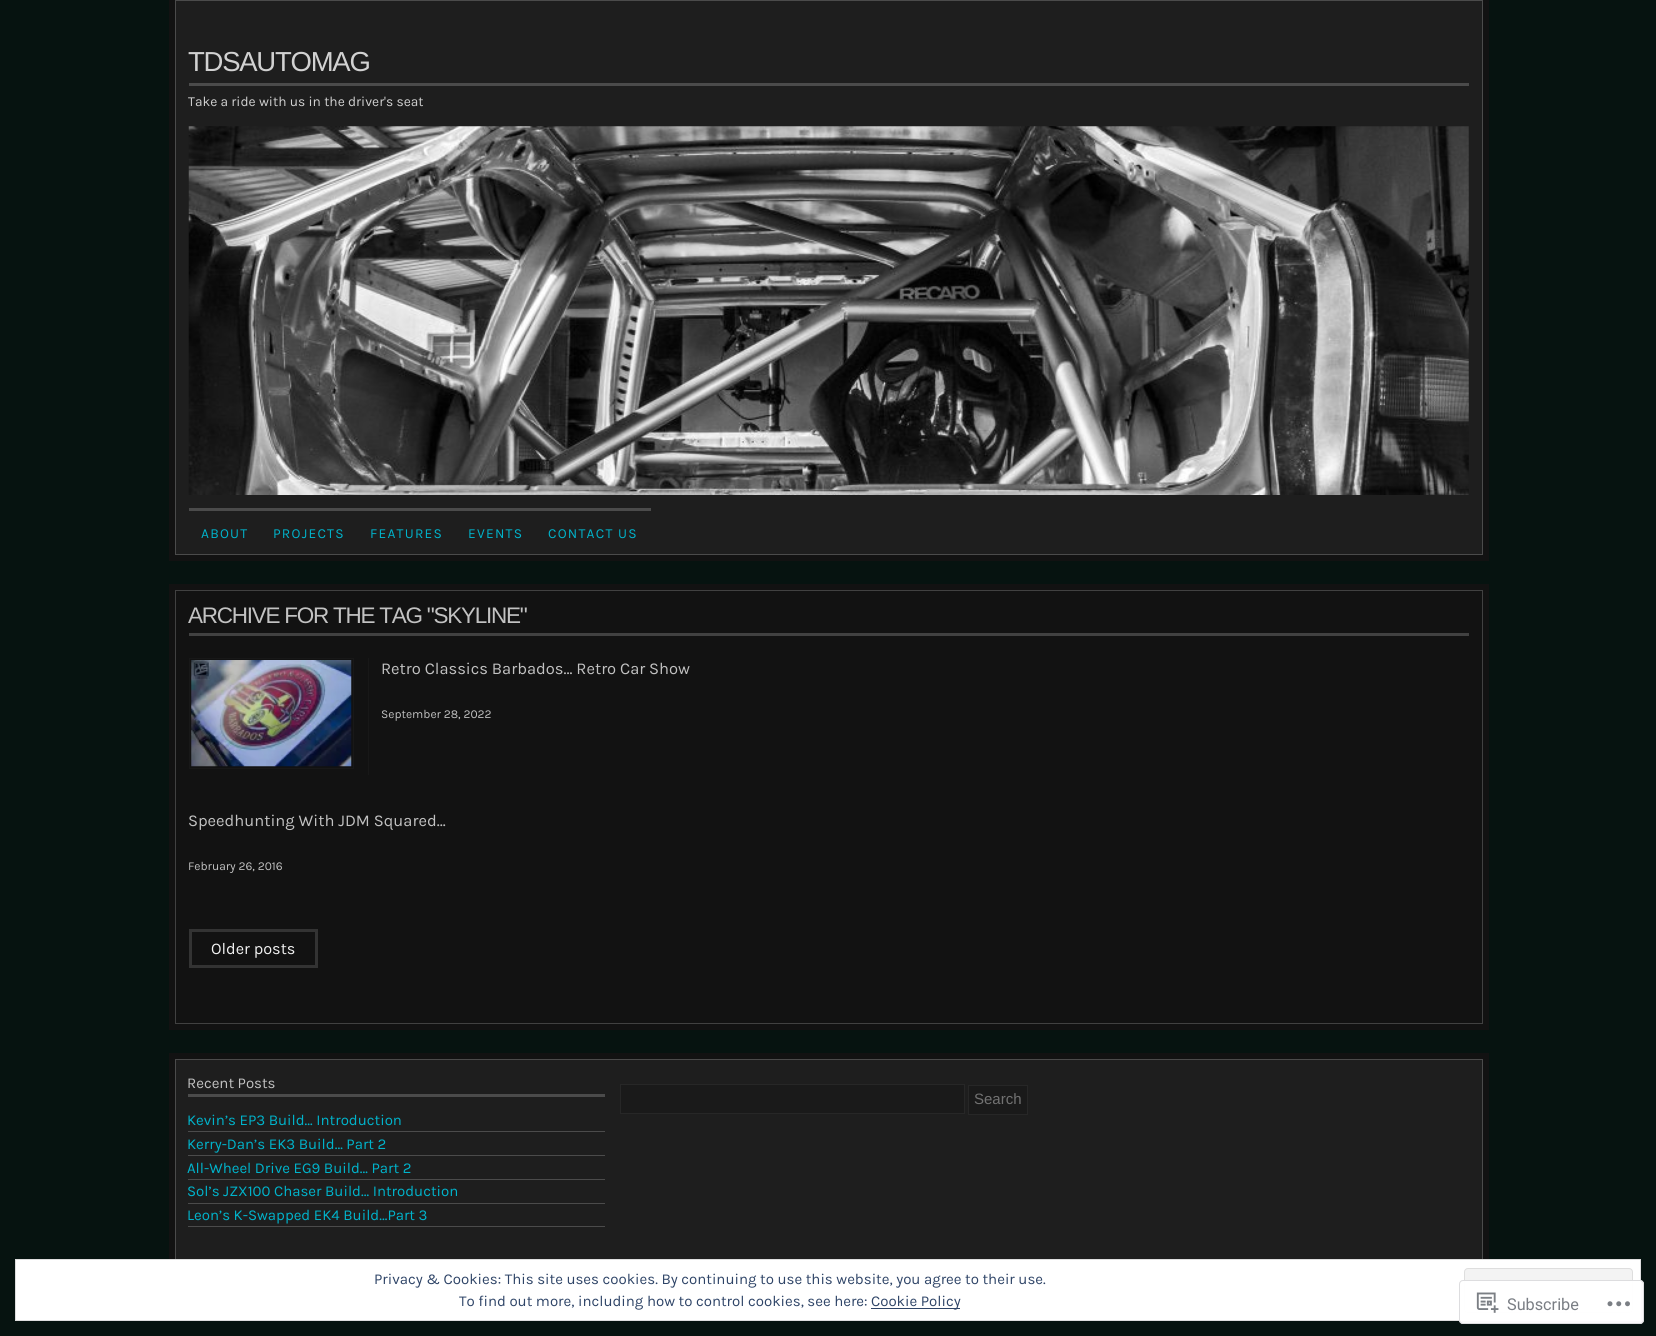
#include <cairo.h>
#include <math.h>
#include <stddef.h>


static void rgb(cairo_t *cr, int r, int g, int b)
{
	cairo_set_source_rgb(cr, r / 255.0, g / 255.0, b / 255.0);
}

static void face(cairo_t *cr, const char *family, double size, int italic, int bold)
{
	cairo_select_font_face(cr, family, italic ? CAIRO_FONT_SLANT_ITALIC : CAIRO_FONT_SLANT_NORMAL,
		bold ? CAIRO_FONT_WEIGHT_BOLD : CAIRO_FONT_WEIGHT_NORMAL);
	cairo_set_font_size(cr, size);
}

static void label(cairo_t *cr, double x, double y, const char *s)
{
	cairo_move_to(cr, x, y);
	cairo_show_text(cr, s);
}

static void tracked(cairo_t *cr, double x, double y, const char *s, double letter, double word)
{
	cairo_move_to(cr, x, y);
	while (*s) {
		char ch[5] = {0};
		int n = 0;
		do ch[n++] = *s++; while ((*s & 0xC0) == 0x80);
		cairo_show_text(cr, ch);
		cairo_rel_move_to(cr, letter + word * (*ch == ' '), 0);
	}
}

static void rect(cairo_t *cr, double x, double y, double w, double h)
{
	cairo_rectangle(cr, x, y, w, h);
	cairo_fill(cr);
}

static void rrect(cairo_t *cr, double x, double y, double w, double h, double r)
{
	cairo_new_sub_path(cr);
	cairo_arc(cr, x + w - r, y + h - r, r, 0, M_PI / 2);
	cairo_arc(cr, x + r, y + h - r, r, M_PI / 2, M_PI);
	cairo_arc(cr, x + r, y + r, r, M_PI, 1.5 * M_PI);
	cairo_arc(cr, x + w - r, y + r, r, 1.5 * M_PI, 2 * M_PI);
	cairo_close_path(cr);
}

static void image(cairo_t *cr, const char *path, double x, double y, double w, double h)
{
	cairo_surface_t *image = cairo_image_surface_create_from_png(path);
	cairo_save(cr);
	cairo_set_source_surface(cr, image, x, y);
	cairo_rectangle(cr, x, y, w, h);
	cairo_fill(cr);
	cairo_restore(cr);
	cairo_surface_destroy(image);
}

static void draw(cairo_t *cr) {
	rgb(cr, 6, 19, 16);
	cairo_paint(cr);
	rgb(cr, 18, 18, 18);
	rect(cr, 169, 0, 1320, 561);
	rgb(cr, 30, 30, 30);
	cairo_rectangle(cr, 175.5, 0.5, 1307, 554);
	cairo_fill_preserve(cr);
	rgb(cr, 75, 75, 75);
	cairo_set_line_width(cr, 1);
	cairo_stroke(cr);
	rect(cr, 189, 83, 1280, 3);
	face(cr, "Liberation Sans", 27.5, 0, 0);
	rgb(cr, 209, 209, 209);
	tracked(cr, 188, 71, "TDSAUTOMAG", -1.25, 0);
	face(cr, "Karla", 13.75, 0, 0);
	label(cr, 188, 106, "Take a ride with us in the driver's seat");
	image(cr, "image0.png", 188, 126, 1281, 369);
	rgb(cr, 75, 75, 75);
	rect(cr, 189, 508, 462, 3);
	rgb(cr, 0, 180, 204);
	tracked(cr, 201, 538, "ABOUT", 1.25, 0);
	tracked(cr, 273, 538, "PROJECTS", 1.25, 0);
	tracked(cr, 370, 538, "FEATURES", 1.25, 0);
	tracked(cr, 468, 538, "EVENTS", 1.25, 0);
	tracked(cr, 548, 538, "CONTACT US", 1.25, 0);
	rgb(cr, 18, 18, 18);
	rect(cr, 169, 584, 1320, 446);
	cairo_rectangle(cr, 175.5, 590.5, 1307, 433);
	rgb(cr, 65, 65, 65);
	cairo_stroke(cr);
	rect(cr, 189, 633, 1280, 3);
	face(cr, "Liberation Sans", 22.5, 0, 0);
	rgb(cr, 194, 194, 194);
	tracked(cr, 188, 623, "ARCHIVE FOR THE TAG \"SKYLINE\"", -1.25, 0);
	rgb(cr, 24, 24, 24);
	rect(cr, 368, 658, 1, 117);
	cairo_rectangle(cr, 189.5, 658.5, 164, 110);
	cairo_stroke(cr);
	image(cr, "image1.png", 191, 660, 161, 107);
	face(cr, "Karla", 16.5, 0, 0);
	rgb(cr, 194, 194, 194);
	label(cr, 381, 674, "Retro Classics Barbados… Retro Car Show");
	face(cr, "Karla", 12, 0, 0);
	label(cr, 381, 718, "September 28, 2022");
	face(cr, "Karla", 16.5, 0, 0);
	label(cr, 188, 826, "Speedhunting With JDM Squared…");
	face(cr, "Karla", 12, 0, 0);
	label(cr, 188, 870, "February 26, 2016");
	cairo_rectangle(cr, 190.5, 930.5, 126, 36);
	rgb(cr, 51, 51, 51);
	cairo_set_line_width(cr, 3);
	cairo_stroke(cr);
	face(cr, "Karla", 16.25, 0, 0);
	rgb(cr, 242, 242, 242);
	label(cr, 211, 954, "Older posts");
	rgb(cr, 18, 18, 18);
	rect(cr, 169, 1053, 1320, 206);
	rgb(cr, 30, 30, 30);
	rect(cr, 176, 1060, 1306, 199);
	cairo_rectangle(cr, 175.5, 1059.5, 1307, 205);
	rgb(cr, 75, 75, 75);
	cairo_set_line_width(cr, 1);
	cairo_stroke(cr);
	rect(cr, 188, 1094, 417, 3);
	face(cr, "Karla", 15, 0, 0);
	rgb(cr, 194, 194, 194);
	label(cr, 187, 1088, "Recent Posts");
	rgb(cr, 75, 75, 75);
	rect(cr, 188, 1131, 417, 1);
	rgb(cr, 0, 180, 204);
	label(cr, 187, 1125, "Kevin’s EP3 Build… Introduction");
	rgb(cr, 75, 75, 75);
	rect(cr, 188, 1155, 417, 1);
	rgb(cr, 0, 180, 204);
	label(cr, 187, 1149, "Kerry-Dan’s EK3 Build… Part 2");
	rgb(cr, 75, 75, 75);
	rect(cr, 188, 1179, 417, 1);
	rgb(cr, 0, 180, 204);
	label(cr, 187, 1173, "All-Wheel Drive EG9 Build… Part 2");
	rgb(cr, 75, 75, 75);
	rect(cr, 188, 1203, 417, 1);
	rgb(cr, 0, 180, 204);
	label(cr, 187, 1196, "Sol’s JZX100 Chaser Build… Introduction");
	rgb(cr, 75, 75, 75);
	rect(cr, 188, 1226, 417, 1);
	rgb(cr, 0, 180, 204);
	label(cr, 187, 1220, "Leon’s K-Swapped EK4 Build…Part 3");
	rgb(cr, 26, 26, 26);
	cairo_rectangle(cr, 620.5, 1084.5, 344, 29);
	cairo_fill_preserve(cr);
	rgb(cr, 39, 39, 39);
	cairo_stroke(cr);
	rgb(cr, 26, 26, 26);
	cairo_rectangle(cr, 968.5, 1085.5, 59, 29);
	cairo_fill_preserve(cr);
	rgb(cr, 39, 39, 39);
	cairo_stroke(cr);
	face(cr, "Liberation Sans", 15, 0, 0);
	rgb(cr, 114, 114, 114);
	label(cr, 974, 1104, "Search");
	rgb(cr, 255, 255, 255);
	cairo_rectangle(cr, 15.5, 1259.5, 1625, 61);
	cairo_fill_preserve(cr);
	rgb(cr, 222, 222, 222);
	cairo_stroke(cr);
	face(cr, "Karla", 15, 0, 0);
	rgb(cr, 46, 68, 103);
	label(cr, 374, 1284, "Privacy & Cookies: This site uses cookies. By continuing to use this website, you agree to their use.");
	rgb(cr, 243, 243, 243);
	rrect(cr, 1464.5, 1268.5, 168, 44, 3.5);
	cairo_fill_preserve(cr);
	rgb(cr, 222, 222, 222);
	cairo_stroke(cr);
	rgb(cr, 46, 68, 103);
	label(cr, 459, 1306, "To find out more, including how to control cookies, see here:");
	rect(cr, 871, 1308, 89, 1);
	label(cr, 871, 1306, "Cookie Policy");
	cairo_set_source_rgba(cr, 1, 1, 1, 0.98);
	rrect(cr, 1459, 1280, 185, 44, 4);
	cairo_fill(cr);
	rrect(cr, 1459.5, 1280.5, 184, 43, 3.5);
	cairo_set_source_rgba(cr, 0.863, 0.863, 0.871, 0.98);
	cairo_stroke(cr);
	image(cr, "image2.png", 1476, 1292, 23, 21);
	face(cr, "Roboto", 16.25, 0, 0);
	rgb(cr, 122, 126, 132);
	label(cr, 1507, 1310, "Subscribe");
	image(cr, "image3.png", 1607, 1301, 23, 6);
}

int main(void) {
	cairo_surface_t *surface = cairo_image_surface_create(CAIRO_FORMAT_RGB24, 1656, 1336);
	cairo_t *cr = cairo_create(surface);
	cairo_font_options_t *options = cairo_font_options_create();
	cairo_font_options_set_hint_metrics(options, CAIRO_HINT_METRICS_OFF);
	cairo_font_options_set_hint_style(options, CAIRO_HINT_STYLE_NONE);
	cairo_set_font_options(cr, options);
	cairo_set_miter_limit(cr, 4);
	draw(cr);
	cairo_surface_write_to_png(surface, "render.png");
	cairo_font_options_destroy(options);
	cairo_destroy(cr);
	cairo_surface_destroy(surface);
	return 0;
}
